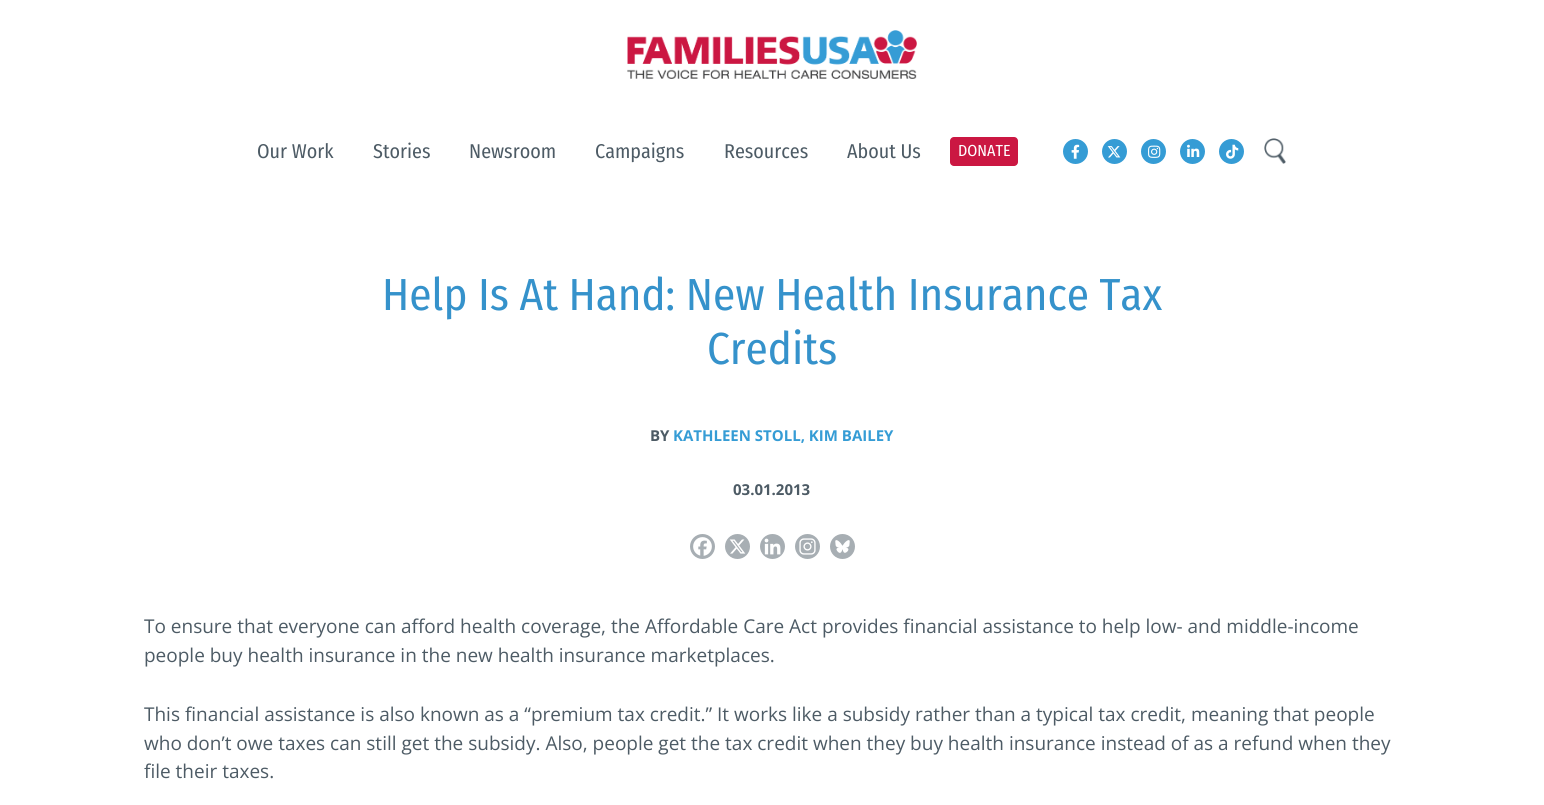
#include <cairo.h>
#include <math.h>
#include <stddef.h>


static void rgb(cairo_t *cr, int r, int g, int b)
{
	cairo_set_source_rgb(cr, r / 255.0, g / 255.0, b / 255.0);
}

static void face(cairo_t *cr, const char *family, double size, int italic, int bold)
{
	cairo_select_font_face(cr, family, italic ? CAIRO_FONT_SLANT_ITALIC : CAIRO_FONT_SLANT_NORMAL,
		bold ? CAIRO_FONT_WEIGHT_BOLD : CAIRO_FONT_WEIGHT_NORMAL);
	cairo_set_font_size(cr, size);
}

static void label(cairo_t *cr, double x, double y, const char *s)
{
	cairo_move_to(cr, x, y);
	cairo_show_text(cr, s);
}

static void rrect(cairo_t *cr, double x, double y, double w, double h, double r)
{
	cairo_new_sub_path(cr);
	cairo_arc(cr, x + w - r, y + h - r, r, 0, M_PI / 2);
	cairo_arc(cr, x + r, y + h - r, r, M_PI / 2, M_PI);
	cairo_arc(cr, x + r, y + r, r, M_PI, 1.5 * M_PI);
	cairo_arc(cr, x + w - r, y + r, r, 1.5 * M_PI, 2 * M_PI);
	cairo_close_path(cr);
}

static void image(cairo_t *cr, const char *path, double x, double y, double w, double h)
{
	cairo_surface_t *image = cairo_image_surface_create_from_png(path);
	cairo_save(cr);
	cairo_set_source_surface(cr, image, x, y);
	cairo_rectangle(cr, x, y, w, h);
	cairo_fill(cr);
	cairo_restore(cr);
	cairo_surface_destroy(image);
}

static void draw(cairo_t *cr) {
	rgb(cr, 255, 255, 255);
	cairo_paint(cr);
	image(cr, "image0.png", 627, 30, 290, 49);
	face(cr, "Fira Sans Condensed", 20, 0, 0);
	rgb(cr, 77, 91, 101);
	label(cr, 257, 158, "Our Work");
	label(cr, 373, 158, "Stories");
	label(cr, 469, 158, "Newsroom");
	label(cr, 595, 158, "Campaigns");
	label(cr, 724, 158, "Resources");
	label(cr, 847, 158, "About Us");
	rgb(cr, 203, 23, 66);
	rrect(cr, 950, 137, 68, 29, 4);
	cairo_fill(cr);
	face(cr, "Fira Sans Condensed", 16, 0, 0);
	rgb(cr, 255, 255, 255);
	label(cr, 958, 156, "DONATE");
	rgb(cr, 53, 156, 213);
	cairo_new_path(cr);
	cairo_arc(cr, 1075.5, 151.5, 12.5, 0, 2 * M_PI);
	cairo_fill(cr);
	image(cr, "image1.png", 1071, 144, 9, 15);
	cairo_arc(cr, 1114.5, 151.5, 12.5, 0, 2 * M_PI);
	cairo_fill(cr);
	image(cr, "image2.png", 1107, 146, 14, 12);
	cairo_arc(cr, 1153.5, 151.5, 12.5, 0, 2 * M_PI);
	cairo_fill(cr);
	image(cr, "image3.png", 1148, 145, 13, 13);
	cairo_arc(cr, 1192.5, 151.5, 12.5, 0, 2 * M_PI);
	cairo_fill(cr);
	image(cr, "image4.png", 1187, 144, 13, 13);
	cairo_arc(cr, 1231.5, 151.5, 12.5, 0, 2 * M_PI);
	cairo_fill(cr);
	image(cr, "image5.png", 1226, 144, 13, 15);
	image(cr, "image6.png", 1264, 138, 22, 26);
	face(cr, "Fira Sans Condensed", 45, 0, 0);
	rgb(cr, 53, 146, 203);
	label(cr, 382, 310, "Help Is At Hand: New Health Insurance Tax");
	label(cr, 707, 364, "Credits");
	face(cr, "Open Sans", 15, 0, 1);
	rgb(cr, 77, 91, 101);
	label(cr, 650, 441, "BY");
	rgb(cr, 53, 156, 213);
	label(cr, 673, 441, "KATHLEEN STOLL, KIM BAILEY");
	rgb(cr, 77, 91, 101);
	label(cr, 733, 495, "03.01.2013");
	rgb(cr, 167, 174, 179);
	cairo_new_path(cr);
	cairo_arc(cr, 702.5, 546.5, 12.5, 0, 2 * M_PI);
	cairo_fill(cr);
	image(cr, "image7.png", 693, 537, 19, 19);
	cairo_arc(cr, 737.5, 546.5, 12.5, 0, 2 * M_PI);
	cairo_fill(cr);
	image(cr, "image8.png", 729, 539, 17, 15);
	cairo_arc(cr, 772.5, 546.5, 12.5, 0, 2 * M_PI);
	cairo_fill(cr);
	image(cr, "image9.png", 764, 538, 17, 17);
	cairo_arc(cr, 807.5, 546.5, 12.5, 0, 2 * M_PI);
	cairo_fill(cr);
	image(cr, "image10.png", 799, 538, 17, 17);
	cairo_arc(cr, 842.5, 546.5, 12.5, 0, 2 * M_PI);
	cairo_fill(cr);
	image(cr, "image11.png", 835, 540, 15, 13);
	face(cr, "Open Sans", 19, 0, 0);
	rgb(cr, 77, 91, 101);
	label(cr, 144, 633, "To ensure that everyone can afford health coverage, the Affordable Care Act provides financial assistance to help low- and middle-income");
	label(cr, 144, 662, "people buy health insurance in the new health insurance marketplaces.");
	label(cr, 144, 721, "This financial assistance is also known as a “premium tax credit.” It works like a subsidy rather than a typical tax credit, meaning that people");
	label(cr, 144, 750, "who don’t owe taxes can still get the subsidy. Also, people get the tax credit when they buy health insurance instead of as a refund when they");
	label(cr, 144, 778, "file their taxes.");
}

int main(void) {
	cairo_surface_t *surface = cairo_image_surface_create(CAIRO_FORMAT_RGB24, 1544, 805);
	cairo_t *cr = cairo_create(surface);
	cairo_font_options_t *options = cairo_font_options_create();
	cairo_font_options_set_hint_metrics(options, CAIRO_HINT_METRICS_OFF);
	cairo_font_options_set_hint_style(options, CAIRO_HINT_STYLE_NONE);
	cairo_set_font_options(cr, options);
	cairo_set_miter_limit(cr, 4);
	draw(cr);
	cairo_surface_write_to_png(surface, "render.png");
	cairo_font_options_destroy(options);
	cairo_destroy(cr);
	cairo_surface_destroy(surface);
	return 0;
}
